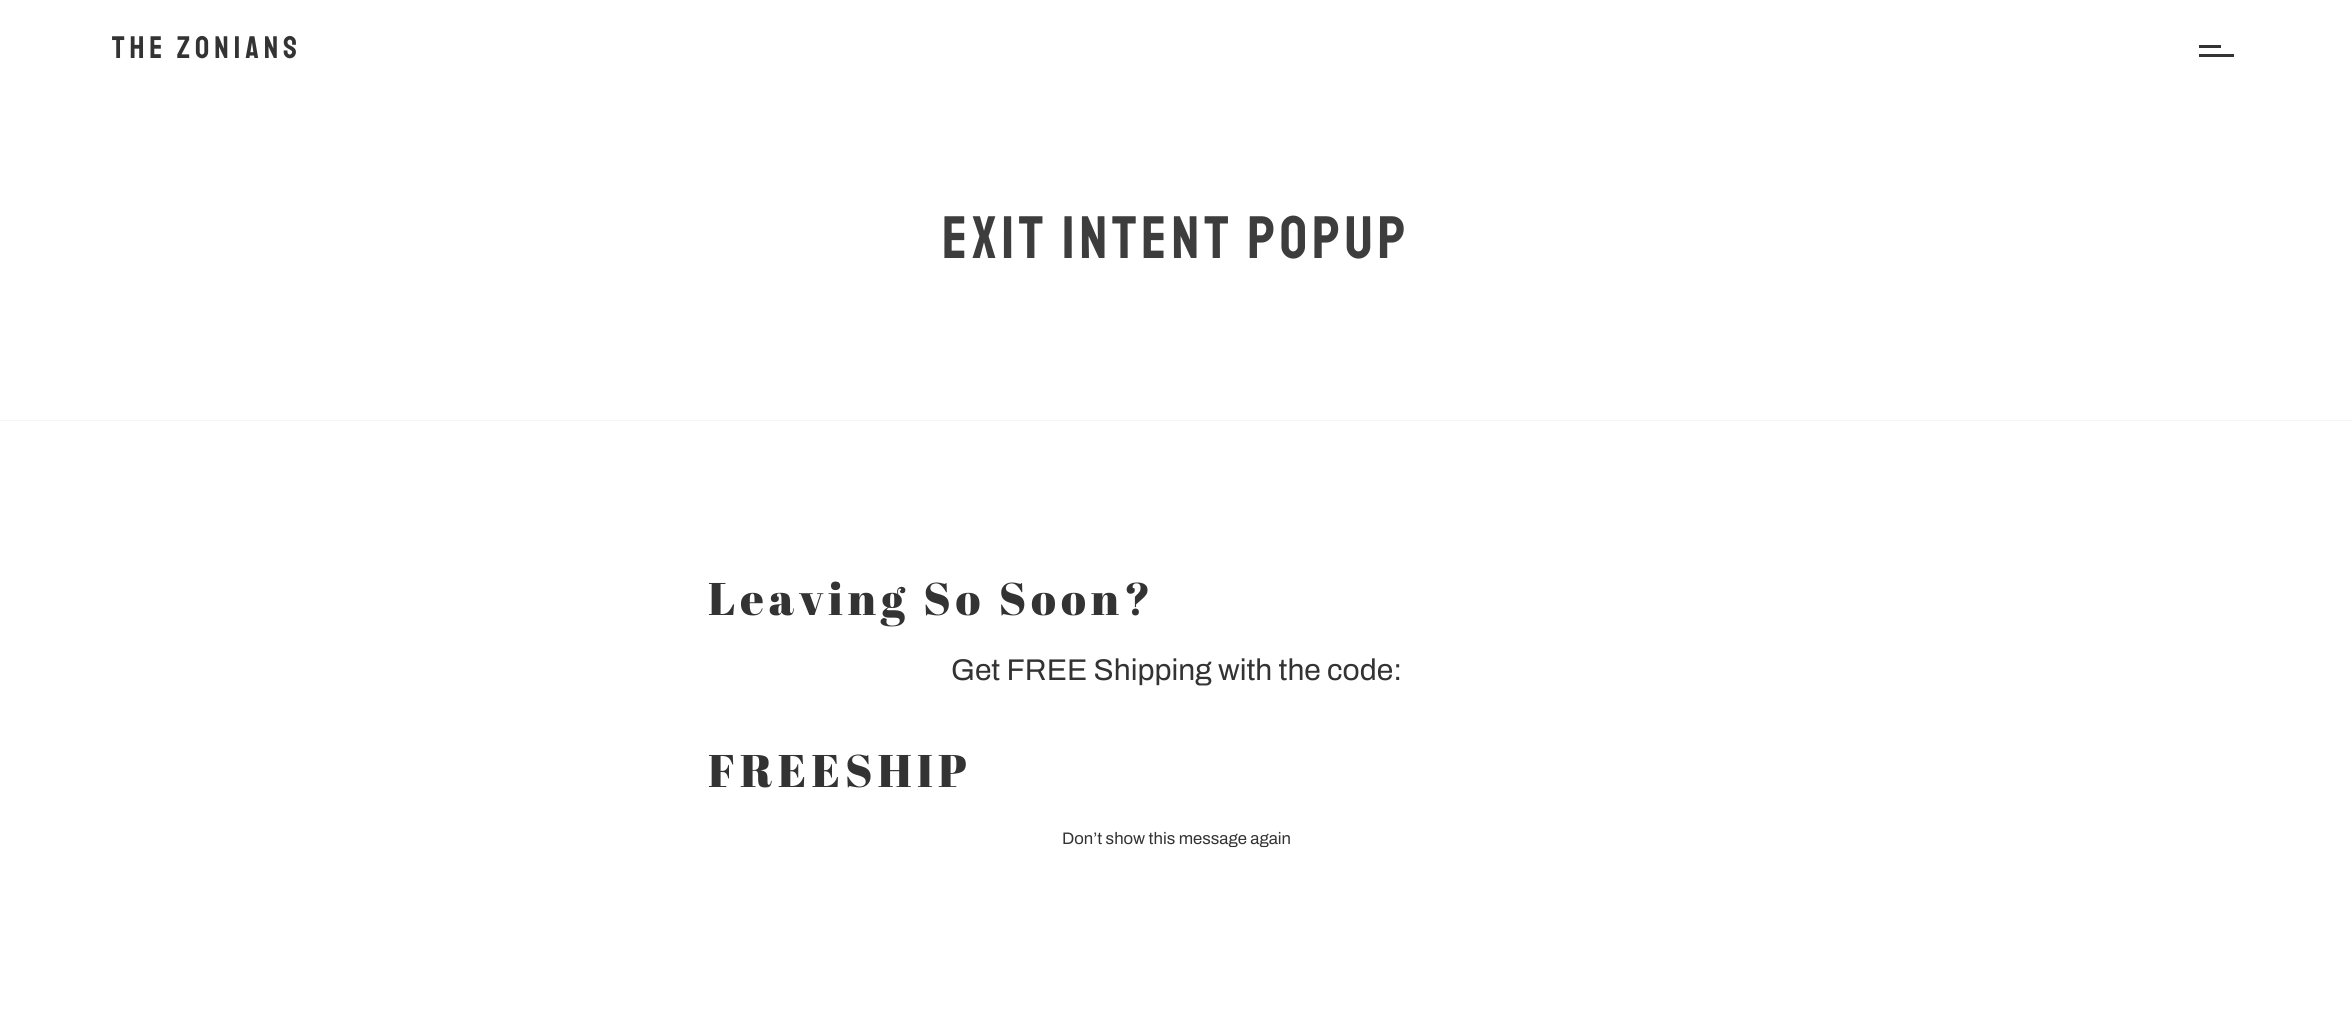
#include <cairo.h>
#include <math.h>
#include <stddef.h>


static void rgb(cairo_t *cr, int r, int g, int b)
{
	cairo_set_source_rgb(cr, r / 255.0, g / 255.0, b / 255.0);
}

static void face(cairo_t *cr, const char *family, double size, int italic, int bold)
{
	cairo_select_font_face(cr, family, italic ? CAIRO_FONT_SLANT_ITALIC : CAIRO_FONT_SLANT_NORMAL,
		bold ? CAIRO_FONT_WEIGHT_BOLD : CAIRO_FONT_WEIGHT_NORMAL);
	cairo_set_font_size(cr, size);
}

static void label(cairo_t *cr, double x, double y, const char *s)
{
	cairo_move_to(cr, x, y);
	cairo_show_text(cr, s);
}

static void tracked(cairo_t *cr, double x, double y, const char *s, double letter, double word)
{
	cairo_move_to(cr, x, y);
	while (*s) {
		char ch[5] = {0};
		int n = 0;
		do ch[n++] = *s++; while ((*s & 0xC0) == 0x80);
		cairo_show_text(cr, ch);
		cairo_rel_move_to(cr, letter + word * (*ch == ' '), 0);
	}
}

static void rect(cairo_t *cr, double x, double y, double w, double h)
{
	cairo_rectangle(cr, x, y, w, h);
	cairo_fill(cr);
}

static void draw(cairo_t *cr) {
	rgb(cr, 255, 255, 255);
	cairo_paint(cr);
	face(cr, "Staatliches", 31.25, 0, 0);
	rgb(cr, 51, 51, 51);
	tracked(cr, 112, 58, "The Zonians", 5, 0);
	rect(cr, 2199, 45, 22, 3);
	rect(cr, 2199, 54, 35, 3);
	rgb(cr, 245, 245, 245);
	rect(cr, 0, 420, 2352, 1);
	face(cr, "Staatliches", 60, 0, 0);
	rgb(cr, 61, 61, 61);
	tracked(cr, 942, 258, "Exit Intent Popup", 5, 0);
	face(cr, "Abril Fatface", 45.75, 0, 0);
	rgb(cr, 51, 51, 51);
	tracked(cr, 708, 615, "Leaving So Soon?", 5, 0);
	face(cr, "Archivo", 30, 0, 0);
	label(cr, 951, 680, "Get FREE Shipping with the code:");
	face(cr, "Abril Fatface", 45.75, 0, 0);
	tracked(cr, 708, 787, "FREESHIP", 5, 0);
	face(cr, "Archivo", 16.7, 0, 0);
	label(cr, 1062, 844, "Don’t show this message again");
}

int main(void) {
	cairo_surface_t *surface = cairo_image_surface_create(CAIRO_FORMAT_RGB24, 2352, 1030);
	cairo_t *cr = cairo_create(surface);
	cairo_font_options_t *options = cairo_font_options_create();
	cairo_font_options_set_hint_metrics(options, CAIRO_HINT_METRICS_OFF);
	cairo_font_options_set_hint_style(options, CAIRO_HINT_STYLE_NONE);
	cairo_set_font_options(cr, options);
	cairo_set_miter_limit(cr, 4);
	draw(cr);
	cairo_surface_write_to_png(surface, "render.png");
	cairo_font_options_destroy(options);
	cairo_destroy(cr);
	cairo_surface_destroy(surface);
	return 0;
}
